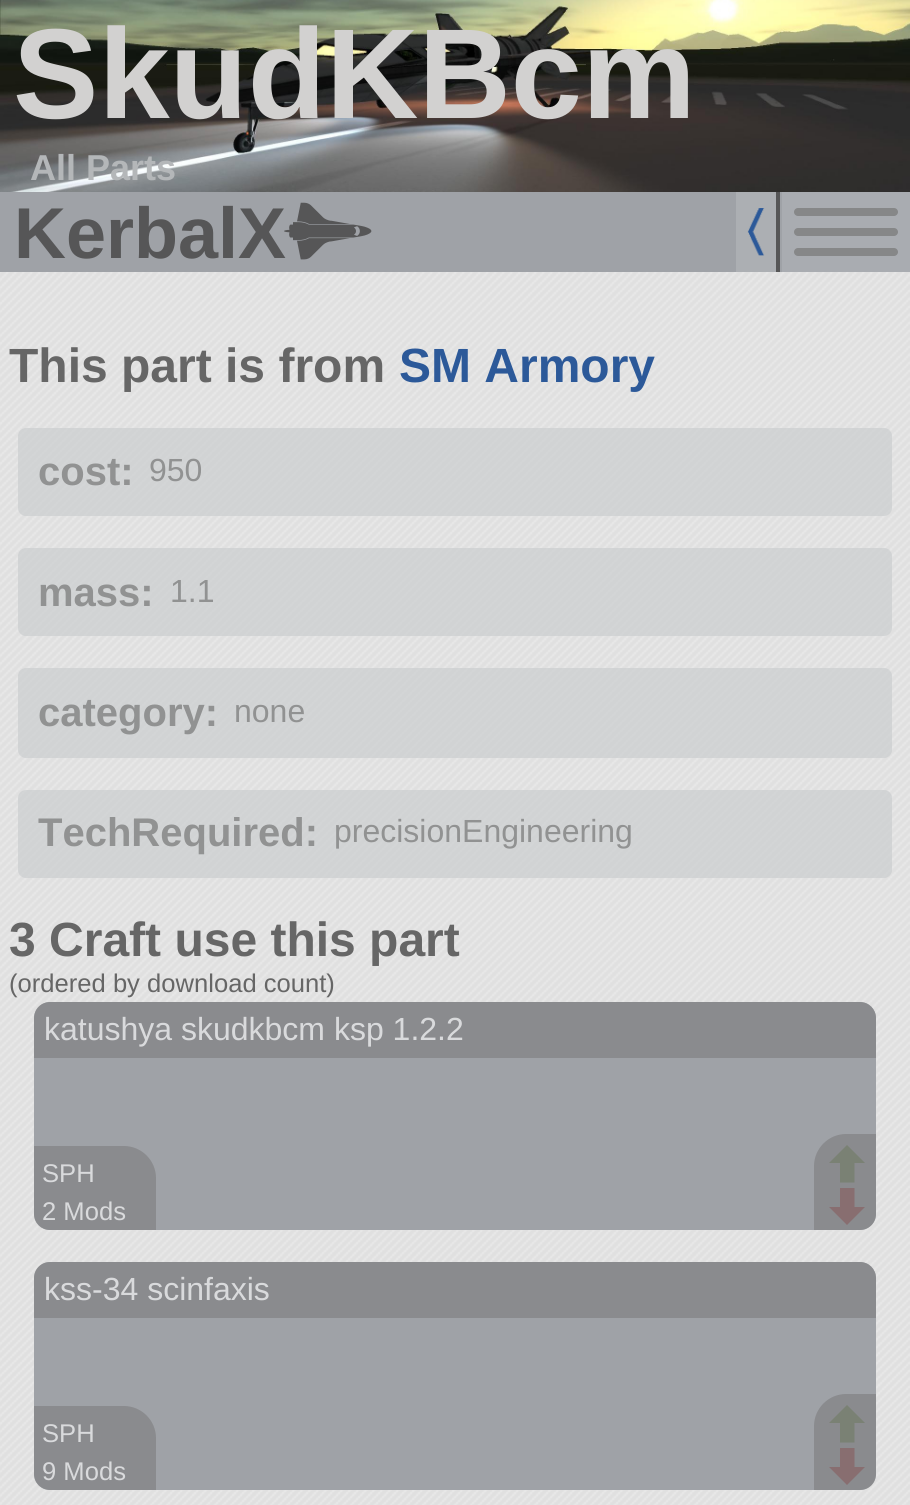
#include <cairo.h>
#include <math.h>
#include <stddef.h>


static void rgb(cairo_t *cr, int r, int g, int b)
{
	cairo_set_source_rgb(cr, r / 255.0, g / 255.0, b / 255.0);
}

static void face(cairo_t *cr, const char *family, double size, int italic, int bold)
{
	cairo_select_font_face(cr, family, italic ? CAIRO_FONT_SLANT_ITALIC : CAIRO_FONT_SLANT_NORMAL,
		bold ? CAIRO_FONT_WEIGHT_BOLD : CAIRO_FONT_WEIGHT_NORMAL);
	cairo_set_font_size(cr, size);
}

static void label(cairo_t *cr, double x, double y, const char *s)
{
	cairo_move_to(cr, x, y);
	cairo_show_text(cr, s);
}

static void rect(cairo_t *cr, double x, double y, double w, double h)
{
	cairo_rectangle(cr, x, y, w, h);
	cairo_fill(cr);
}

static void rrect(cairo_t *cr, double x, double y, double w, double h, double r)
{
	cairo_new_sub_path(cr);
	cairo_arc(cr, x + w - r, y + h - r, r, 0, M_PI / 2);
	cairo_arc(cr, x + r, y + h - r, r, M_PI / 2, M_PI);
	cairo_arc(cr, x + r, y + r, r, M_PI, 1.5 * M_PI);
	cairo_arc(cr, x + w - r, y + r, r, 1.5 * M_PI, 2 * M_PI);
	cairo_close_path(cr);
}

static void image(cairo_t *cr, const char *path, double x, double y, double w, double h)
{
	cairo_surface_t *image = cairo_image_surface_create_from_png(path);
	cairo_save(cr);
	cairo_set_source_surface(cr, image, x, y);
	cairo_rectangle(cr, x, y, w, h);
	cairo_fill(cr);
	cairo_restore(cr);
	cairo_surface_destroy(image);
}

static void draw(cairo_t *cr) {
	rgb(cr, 255, 255, 255);
	cairo_paint(cr);
	image(cr, "image0.png", 0, 272, 910, 1233);
	image(cr, "image1.png", 0, 0, 910, 192);
	face(cr, "Liberation Sans", 128, 0, 1);
	rgb(cr, 210, 209, 208);
	label(cr, 13, 118, "SkudKBcm");
	face(cr, "Liberation Sans", 36, 0, 1);
	rgb(cr, 180, 183, 185);
	label(cr, 30, 180, "All Parts");
	rgb(cr, 159, 162, 167);
	rect(cr, 0, 192, 782, 80);
	face(cr, "Liberation Sans", 72, 0, 1);
	rgb(cr, 86, 86, 87);
	label(cr, 14, 258, "KerbalX");
	image(cr, "image2.png", 284, 202, 88, 58);
	rgb(cr, 172, 175, 179);
	rect(cr, 736, 192, 40, 80);
	rgb(cr, 86, 86, 87);
	rect(cr, 776, 192, 4, 80);
	image(cr, "image3.png", 747, 208, 18, 48);
	rgb(cr, 169, 172, 177);
	rect(cr, 782, 192, 128, 80);
	rgb(cr, 134, 135, 136);
	rrect(cr, 794, 208, 104, 8, 4);
	cairo_fill(cr);
	rrect(cr, 794, 228, 104, 8, 4);
	cairo_fill(cr);
	rrect(cr, 794, 248, 104, 8, 4);
	cairo_fill(cr);
	face(cr, "Liberation Sans", 48, 0, 1);
	rgb(cr, 102, 102, 102);
	label(cr, 9, 382, "This part is from");
	rgb(cr, 44, 89, 153);
	label(cr, 399, 382, "SM Armory");
	cairo_set_source_rgba(cr, 0.78, 0.788, 0.8, 0.6);
	rrect(cr, 18, 428, 874, 88, 8);
	cairo_fill(cr);
	face(cr, "Liberation Sans", 40, 0, 1);
	rgb(cr, 145, 146, 146);
	label(cr, 38, 485, "cost:");
	face(cr, "Liberation Sans", 32, 0, 0);
	label(cr, 149, 481, "950");
	cairo_set_source_rgba(cr, 0.78, 0.788, 0.8, 0.6);
	rrect(cr, 18, 548, 874, 88, 8);
	cairo_fill(cr);
	face(cr, "Liberation Sans", 40, 0, 1);
	rgb(cr, 145, 146, 146);
	label(cr, 38, 606, "mass:");
	face(cr, "Liberation Sans", 32, 0, 0);
	label(cr, 170, 602, "1.1");
	cairo_set_source_rgba(cr, 0.78, 0.788, 0.8, 0.6);
	rrect(cr, 18, 668, 874, 90, 8);
	cairo_fill(cr);
	face(cr, "Liberation Sans", 40, 0, 1);
	rgb(cr, 145, 146, 146);
	label(cr, 38, 726, "category:");
	face(cr, "Liberation Sans", 32, 0, 0);
	label(cr, 234, 722, "none");
	cairo_set_source_rgba(cr, 0.78, 0.788, 0.8, 0.6);
	rrect(cr, 18, 790, 874, 88, 8);
	cairo_fill(cr);
	face(cr, "Liberation Sans", 40, 0, 1);
	rgb(cr, 145, 146, 146);
	label(cr, 38, 846, "TechRequired:");
	face(cr, "Liberation Sans", 32, 0, 0);
	label(cr, 334, 842, "precisionEngineering");
	face(cr, "Liberation Sans", 48, 0, 1);
	rgb(cr, 102, 102, 102);
	label(cr, 9, 956, "3 Craft use this part");
	face(cr, "Liberation Sans", 25.6, 0, 0);
	label(cr, 9, 992, "(ordered by download count)");
	rgb(cr, 159, 162, 167);
	rrect(cr, 34, 1002, 842, 228, 16);
	cairo_fill(cr);
	cairo_save(cr);
	rrect(cr, 34, 1002, 842, 228, 16);
	cairo_clip(cr);
	cairo_set_source_rgba(cr, 0.486, 0.486, 0.49, 0.6);
	cairo_new_path(cr);
	cairo_move_to(cr, 50, 1002);
	cairo_line_to(cr, 872, 1002);
	cairo_curve_to(cr, 881, 1002, 888, 1009, 888, 1018);
	cairo_line_to(cr, 888, 1058);
	cairo_line_to(cr, 34, 1058);
	cairo_line_to(cr, 34, 1018);
	cairo_curve_to(cr, 34, 1009, 41, 1002, 50, 1002);
	cairo_close_path(cr);
	cairo_fill(cr);
	cairo_restore(cr);
	face(cr, "Liberation Sans", 32, 0, 0);
	rgb(cr, 217, 218, 220);
	label(cr, 44, 1040, "katushya skudkbcm ksp 1.2.2");
	cairo_set_source_rgba(cr, 0.486, 0.486, 0.49, 0.6);
	cairo_new_path(cr);
	cairo_move_to(cr, 34, 1146);
	cairo_line_to(cr, 124, 1146);
	cairo_curve_to(cr, 141.5, 1146, 156, 1160.5, 156, 1178);
	cairo_line_to(cr, 156, 1230);
	cairo_line_to(cr, 50, 1230);
	cairo_curve_to(cr, 41, 1230, 34, 1223, 34, 1214);
	cairo_close_path(cr);
	cairo_fill(cr);
	face(cr, "Liberation Sans", 25.6, 0, 0);
	rgb(cr, 217, 218, 220);
	label(cr, 42, 1182, "SPH");
	label(cr, 42, 1220, "2 Mods");
	cairo_set_source_rgba(cr, 0.486, 0.486, 0.49, 0.6);
	cairo_new_path(cr);
	cairo_move_to(cr, 846, 1134);
	cairo_line_to(cr, 876, 1134);
	cairo_line_to(cr, 876, 1214);
	cairo_curve_to(cr, 876, 1223, 869, 1230, 860, 1230);
	cairo_line_to(cr, 814, 1230);
	cairo_line_to(cr, 814, 1166);
	cairo_curve_to(cr, 814, 1148.5, 828.5, 1134, 846, 1134);
	cairo_close_path(cr);
	cairo_fill(cr);
	rgb(cr, 122, 129, 116);
	cairo_new_path(cr);
	cairo_move_to(cr, 847, 1145);
	cairo_line_to(cr, 829, 1163);
	cairo_line_to(cr, 840, 1163);
	cairo_line_to(cr, 840, 1182.5);
	cairo_line_to(cr, 854.5, 1182.5);
	cairo_line_to(cr, 854.5, 1163);
	cairo_line_to(cr, 865, 1163);
	cairo_close_path(cr);
	cairo_fill(cr);
	rgb(cr, 136, 110, 112);
	cairo_new_path(cr);
	cairo_move_to(cr, 847, 1225);
	cairo_line_to(cr, 865, 1207);
	cairo_line_to(cr, 854.5, 1207);
	cairo_line_to(cr, 854.5, 1188);
	cairo_line_to(cr, 840, 1188);
	cairo_line_to(cr, 840, 1207);
	cairo_line_to(cr, 829, 1207);
	cairo_close_path(cr);
	cairo_fill(cr);
	rgb(cr, 159, 162, 167);
	rrect(cr, 34, 1262, 842, 228, 16);
	cairo_fill(cr);
	cairo_save(cr);
	rrect(cr, 34, 1262, 842, 228, 16);
	cairo_clip(cr);
	cairo_set_source_rgba(cr, 0.486, 0.486, 0.49, 0.6);
	cairo_new_path(cr);
	cairo_move_to(cr, 50, 1262);
	cairo_line_to(cr, 872, 1262);
	cairo_curve_to(cr, 881, 1262, 888, 1269, 888, 1278);
	cairo_line_to(cr, 888, 1318);
	cairo_line_to(cr, 34, 1318);
	cairo_line_to(cr, 34, 1278);
	cairo_curve_to(cr, 34, 1269, 41, 1262, 50, 1262);
	cairo_close_path(cr);
	cairo_fill(cr);
	cairo_restore(cr);
	face(cr, "Liberation Sans", 32, 0, 0);
	rgb(cr, 217, 218, 220);
	label(cr, 44, 1300, "kss-34 scinfaxis");
	cairo_set_source_rgba(cr, 0.486, 0.486, 0.49, 0.6);
	cairo_new_path(cr);
	cairo_move_to(cr, 34, 1406);
	cairo_line_to(cr, 124, 1406);
	cairo_curve_to(cr, 141.5, 1406, 156, 1420.5, 156, 1438);
	cairo_line_to(cr, 156, 1490);
	cairo_line_to(cr, 50, 1490);
	cairo_curve_to(cr, 41, 1490, 34, 1483, 34, 1474);
	cairo_close_path(cr);
	cairo_fill(cr);
	face(cr, "Liberation Sans", 25.6, 0, 0);
	rgb(cr, 217, 218, 220);
	label(cr, 42, 1442, "SPH");
	label(cr, 42, 1480, "9 Mods");
	cairo_set_source_rgba(cr, 0.486, 0.486, 0.49, 0.6);
	cairo_new_path(cr);
	cairo_move_to(cr, 846, 1394);
	cairo_line_to(cr, 876, 1394);
	cairo_line_to(cr, 876, 1474);
	cairo_curve_to(cr, 876, 1483, 869, 1490, 860, 1490);
	cairo_line_to(cr, 814, 1490);
	cairo_line_to(cr, 814, 1426);
	cairo_curve_to(cr, 814, 1408.5, 828.5, 1394, 846, 1394);
	cairo_close_path(cr);
	cairo_fill(cr);
	rgb(cr, 122, 129, 116);
	cairo_new_path(cr);
	cairo_move_to(cr, 847, 1405);
	cairo_line_to(cr, 829, 1423);
	cairo_line_to(cr, 840, 1423);
	cairo_line_to(cr, 840, 1442.5);
	cairo_line_to(cr, 854.5, 1442.5);
	cairo_line_to(cr, 854.5, 1423);
	cairo_line_to(cr, 865, 1423);
	cairo_close_path(cr);
	cairo_fill(cr);
	rgb(cr, 136, 110, 112);
	cairo_new_path(cr);
	cairo_move_to(cr, 847, 1485);
	cairo_line_to(cr, 865, 1467);
	cairo_line_to(cr, 854.5, 1467);
	cairo_line_to(cr, 854.5, 1448);
	cairo_line_to(cr, 840, 1448);
	cairo_line_to(cr, 840, 1467);
	cairo_line_to(cr, 829, 1467);
	cairo_close_path(cr);
	cairo_fill(cr);
}

int main(void) {
	cairo_surface_t *surface = cairo_image_surface_create(CAIRO_FORMAT_RGB24, 910, 1505);
	cairo_t *cr = cairo_create(surface);
	cairo_font_options_t *options = cairo_font_options_create();
	cairo_font_options_set_hint_metrics(options, CAIRO_HINT_METRICS_OFF);
	cairo_font_options_set_hint_style(options, CAIRO_HINT_STYLE_NONE);
	cairo_set_font_options(cr, options);
	cairo_set_miter_limit(cr, 4);
	draw(cr);
	cairo_surface_write_to_png(surface, "render.png");
	cairo_font_options_destroy(options);
	cairo_destroy(cr);
	cairo_surface_destroy(surface);
	return 0;
}
